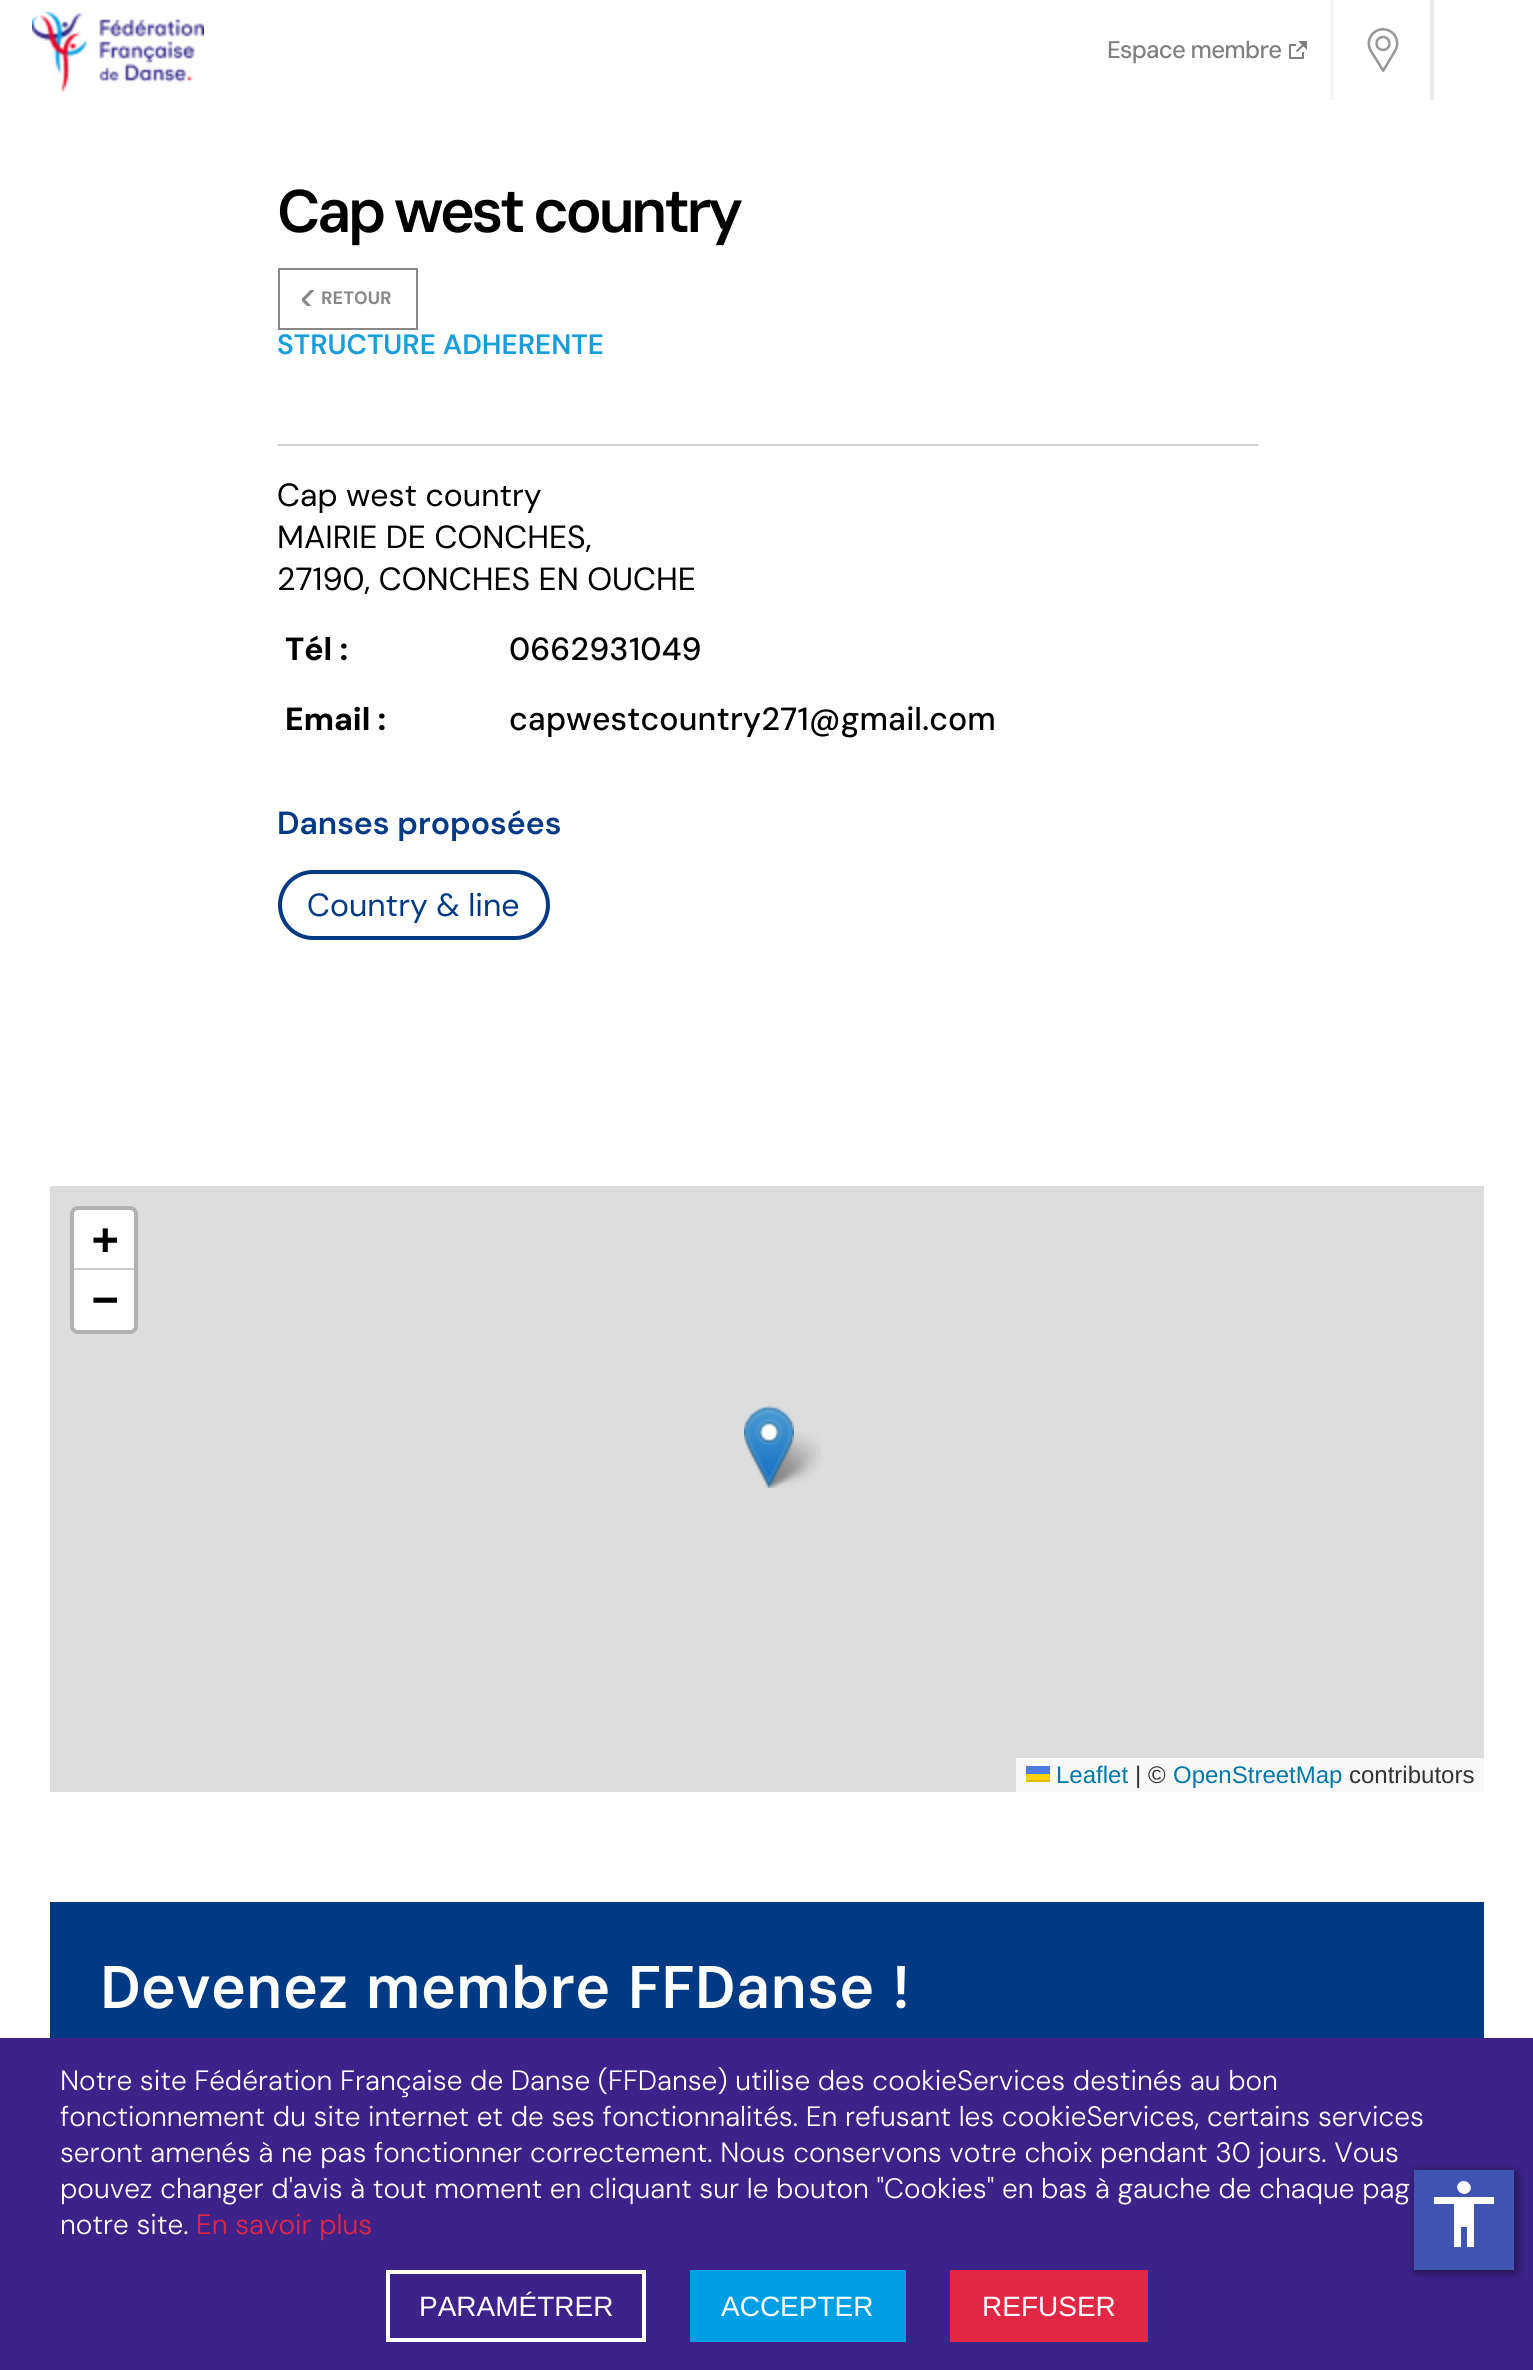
#include <cairo.h>
#include <math.h>
#include <stddef.h>


static void rgb(cairo_t *cr, int r, int g, int b)
{
	cairo_set_source_rgb(cr, r / 255.0, g / 255.0, b / 255.0);
}

static void face(cairo_t *cr, const char *family, double size, int italic, int bold)
{
	cairo_select_font_face(cr, family, italic ? CAIRO_FONT_SLANT_ITALIC : CAIRO_FONT_SLANT_NORMAL,
		bold ? CAIRO_FONT_WEIGHT_BOLD : CAIRO_FONT_WEIGHT_NORMAL);
	cairo_set_font_size(cr, size);
}

static void label(cairo_t *cr, double x, double y, const char *s)
{
	cairo_move_to(cr, x, y);
	cairo_show_text(cr, s);
}

static void tracked(cairo_t *cr, double x, double y, const char *s, double letter, double word)
{
	cairo_move_to(cr, x, y);
	while (*s) {
		char ch[5] = {0};
		int n = 0;
		do ch[n++] = *s++; while ((*s & 0xC0) == 0x80);
		cairo_show_text(cr, ch);
		cairo_rel_move_to(cr, letter + word * (*ch == ' '), 0);
	}
}

static void rect(cairo_t *cr, double x, double y, double w, double h)
{
	cairo_rectangle(cr, x, y, w, h);
	cairo_fill(cr);
}

static void rrect(cairo_t *cr, double x, double y, double w, double h, double r)
{
	cairo_new_sub_path(cr);
	cairo_arc(cr, x + w - r, y + h - r, r, 0, M_PI / 2);
	cairo_arc(cr, x + r, y + h - r, r, M_PI / 2, M_PI);
	cairo_arc(cr, x + r, y + r, r, M_PI, 1.5 * M_PI);
	cairo_arc(cr, x + w - r, y + r, r, 1.5 * M_PI, 2 * M_PI);
	cairo_close_path(cr);
}

static void soft_shadow(cairo_t *cr, double x, double y, double w, double h, double r, double blur, double alpha)
{
	cairo_push_group_with_content(cr, CAIRO_CONTENT_ALPHA);
	cairo_set_operator(cr, CAIRO_OPERATOR_SOURCE);
	for (int i = 15; i >= -15 && fmin(w, h) + blur * i / 3 > 0; i -= 2) {
		double e = blur * i / 6;
		cairo_set_source_rgba(cr, 0, 0, 0, alpha * erfc((i - 1) / 8.5) / 2);
		rrect(cr, x - e, y - e, w + 2 * e, h + 2 * e, fmax(0, fmin(r + e + blur * .6, fmin(w, h) / 2 + e)));
		cairo_fill(cr);
	}
	cairo_pattern_t *soft = cairo_pop_group(cr);
	cairo_mask(cr, soft);
	cairo_pattern_destroy(soft);
}

static void image(cairo_t *cr, const char *path, double x, double y, double w, double h)
{
	cairo_surface_t *image = cairo_image_surface_create_from_png(path);
	cairo_save(cr);
	cairo_set_source_surface(cr, image, x, y);
	cairo_rectangle(cr, x, y, w, h);
	cairo_fill(cr);
	cairo_restore(cr);
	cairo_surface_destroy(image);
}

static void draw(cairo_t *cr) {
	rgb(cr, 255, 255, 255);
	cairo_paint(cr);
	image(cr, "image0.png", 32, 12, 172, 80);
	rgb(cr, 245, 245, 245);
	rect(cr, 1330, 0, 4, 100);
	face(cr, "DM Sans Medium", 24, 0, 0);
	rgb(cr, 128, 128, 128);
	tracked(cr, 1107, 58, "Espace membre", -0.8, 0);
	image(cr, "image1.png", 1289, 41, 18, 18);
	rgb(cr, 235, 235, 235);
	rect(cr, 1430, 0, 4, 100);
	image(cr, "image2.png", 1367, 28, 32, 44);
	face(cr, "DM Sans SemiBold", 60, 0, 0);
	rgb(cr, 0, 0, 0);
	tracked(cr, 277, 232, "Cap west country", -3.8, 0);
	cairo_rectangle(cr, 279, 269, 138, 60);
	rgb(cr, 136, 136, 136);
	cairo_stroke(cr);
	image(cr, "image3.png", 302, 290, 12, 16);
	face(cr, "DM Sans", 18, 0, 1);
	label(cr, 321, 304, "RETOUR");
	face(cr, "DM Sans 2 SemiBold", 28, 0, 0);
	rgb(cr, 26, 157, 217);
	label(cr, 277, 354, "STRUCTURE ADHERENTE");
	rgb(cr, 212, 212, 212);
	rect(cr, 278, 444, 980, 2);
	face(cr, "DM Sans", 32, 0, 0);
	rgb(cr, 0, 0, 0);
	label(cr, 277, 506, "Cap west country");
	label(cr, 277, 548, "MAIRIE DE CONCHES,");
	label(cr, 277, 590, "27190, CONCHES EN OUCHE");
	face(cr, "DM Sans ExtraBold", 32, 0, 0);
	label(cr, 285, 660, "Tél :");
	face(cr, "DM Sans Medium", 32, 0, 0);
	label(cr, 509, 660, "0662931049");
	face(cr, "DM Sans ExtraBold", 32, 0, 0);
	label(cr, 285, 730, "Email :");
	face(cr, "DM Sans Medium", 32, 0, 0);
	label(cr, 509, 730, "capwestcountry271@gmail.com");
	face(cr, "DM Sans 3 SemiBold", 32, 0, 0);
	rgb(cr, 0, 57, 132);
	label(cr, 277, 834, "Danses proposées");
	rrect(cr, 280, 872, 268, 66, 33);
	cairo_set_line_width(cr, 4);
	cairo_stroke(cr);
	face(cr, "DM Sans", 32, 0, 0);
	label(cr, 307, 916, "Country & line");
	rgb(cr, 221, 221, 221);
	rect(cr, 50, 1186, 1434, 606);
	rrect(cr, 72, 1208, 64, 124, 6);
	rgb(cr, 177, 177, 177);
	cairo_stroke(cr);
	rgb(cr, 255, 255, 255);
	cairo_new_path(cr);
	cairo_move_to(cr, 78, 1210);
	cairo_line_to(cr, 130, 1210);
	cairo_curve_to(cr, 132, 1210, 134, 1212, 134, 1214);
	cairo_line_to(cr, 134, 1270);
	cairo_line_to(cr, 74, 1270);
	cairo_line_to(cr, 74, 1214);
	cairo_curve_to(cr, 74, 1212, 76, 1210, 78, 1210);
	cairo_close_path(cr);
	cairo_fill(cr);
	rgb(cr, 204, 204, 204);
	rect(cr, 74, 1268, 60, 2);
	face(cr, "DejaVu Sans Mono", 44, 0, 1);
	rgb(cr, 0, 0, 0);
	label(cr, 92, 1254, "+");
	rgb(cr, 255, 255, 255);
	cairo_new_path(cr);
	cairo_move_to(cr, 74, 1270);
	cairo_line_to(cr, 134, 1270);
	cairo_line_to(cr, 134, 1326);
	cairo_curve_to(cr, 134, 1328, 132, 1330, 130, 1330);
	cairo_line_to(cr, 78, 1330);
	cairo_curve_to(cr, 76, 1330, 74, 1328, 74, 1326);
	cairo_close_path(cr);
	cairo_fill(cr);
	rgb(cr, 0, 0, 0);
	label(cr, 92, 1314, "−");
	rgb(cr, 248, 248, 248);
	rect(cr, 1016, 1758, 468, 34);
	rgb(cr, 76, 123, 225);
	rect(cr, 1026, 1766, 24, 8);
	face(cr, "Liberation Sans", 24, 0, 0);
	rgb(cr, 0, 120, 168);
	label(cr, 1056, 1783, "Leaflet");
	rgb(cr, 255, 213, 0);
	rect(cr, 1026, 1774, 24, 6);
	rgb(cr, 224, 188, 0);
	rect(cr, 1026, 1780, 24, 2);
	rgb(cr, 51, 51, 51);
	label(cr, 1135, 1783, "| ©");
	rgb(cr, 0, 120, 168);
	label(cr, 1173, 1783, "OpenStreetMap");
	rgb(cr, 51, 51, 51);
	label(cr, 1349, 1783, "contributors");
	image(cr, "image5.png", 762, 1431, 60, 57);
	image(cr, "image4.png", 744, 1406, 50, 82);
	rgb(cr, 0, 57, 132);
	rect(cr, 50, 1902, 1434, 136);
	face(cr, "DM Sans SemiBold", 60, 0, 0);
	rgb(cr, 255, 255, 255);
	tracked(cr, 100, 2008, "Devenez membre FFDanse !", 0, 2.5);
	rgb(cr, 61, 34, 137);
	rect(cr, 0, 2038, 1533, 332);
	face(cr, "DM Sans Light", 28, 0, 0);
	rgb(cr, 255, 255, 255);
	label(cr, 60, 2090, "Notre site Fédération Française de Danse (FFDanse) utilise des cookieServices destinés au bon");
	label(cr, 60, 2126, "fonctionnement du site internet et de ses fonctionnalités. En refusant les cookieServices, certains services");
	label(cr, 60, 2162, "seront amenés à ne pas fonctionner correctement. Nous conservons votre choix pendant 30 jours. Vous");
	label(cr, 60, 2198, "pouvez changer d'avis à tout moment en cliquant sur le bouton \"Cookies\" en bas à gauche de chaque pag");
	label(cr, 60, 2234, "notre site.");
	rgb(cr, 226, 39, 68);
	label(cr, 196, 2234, "En savoir plus");
	cairo_rectangle(cr, 388, 2272, 256, 68);
	rgb(cr, 255, 255, 255);
	cairo_stroke(cr);
	face(cr, "Liberation Sans", 28, 0, 0);
	label(cr, 419, 2316, "PARAMÉTRER");
	rgb(cr, 0, 159, 227);
	rect(cr, 690, 2270, 216, 72);
	rgb(cr, 255, 255, 255);
	label(cr, 721, 2316, "ACCEPTER");
	rgb(cr, 226, 39, 68);
	rect(cr, 950, 2270, 198, 72);
	rgb(cr, 255, 255, 255);
	label(cr, 982, 2316, "REFUSER");
	rgb(cr, 0, 0, 0);
	soft_shadow(cr, 1416, 2172, 100, 100, 0, 5, 0.5);
	rgb(cr, 64, 84, 178);
	rect(cr, 1414, 2170, 100, 100);
	rgb(cr, 255, 255, 255);
	cairo_new_path(cr);
	cairo_move_to(cr, 1494, 2204);
	cairo_line_to(cr, 1474, 2204);
	cairo_line_to(cr, 1474, 2247);
	cairo_line_to(cr, 1467, 2247);
	cairo_line_to(cr, 1467, 2227);
	cairo_line_to(cr, 1461, 2227);
	cairo_line_to(cr, 1461, 2247);
	cairo_line_to(cr, 1454, 2247);
	cairo_line_to(cr, 1454, 2204);
	cairo_line_to(cr, 1434, 2204);
	cairo_line_to(cr, 1434, 2197);
	cairo_line_to(cr, 1494, 2197);
	cairo_close_path(cr);
	cairo_move_to(cr, 1459, 2183);
	cairo_curve_to(cr, 1465, 2177, 1475, 2186, 1469, 2192);
	cairo_curve_to(cr, 1463, 2198, 1453, 2189, 1459, 2183);
	cairo_close_path(cr);
	cairo_fill(cr);
}

int main(void) {
	cairo_surface_t *surface = cairo_image_surface_create(CAIRO_FORMAT_RGB24, 1533, 2370);
	cairo_t *cr = cairo_create(surface);
	cairo_font_options_t *options = cairo_font_options_create();
	cairo_font_options_set_hint_metrics(options, CAIRO_HINT_METRICS_OFF);
	cairo_font_options_set_hint_style(options, CAIRO_HINT_STYLE_NONE);
	cairo_set_font_options(cr, options);
	cairo_set_miter_limit(cr, 4);
	draw(cr);
	cairo_surface_write_to_png(surface, "render.png");
	cairo_font_options_destroy(options);
	cairo_destroy(cr);
	cairo_surface_destroy(surface);
	return 0;
}
